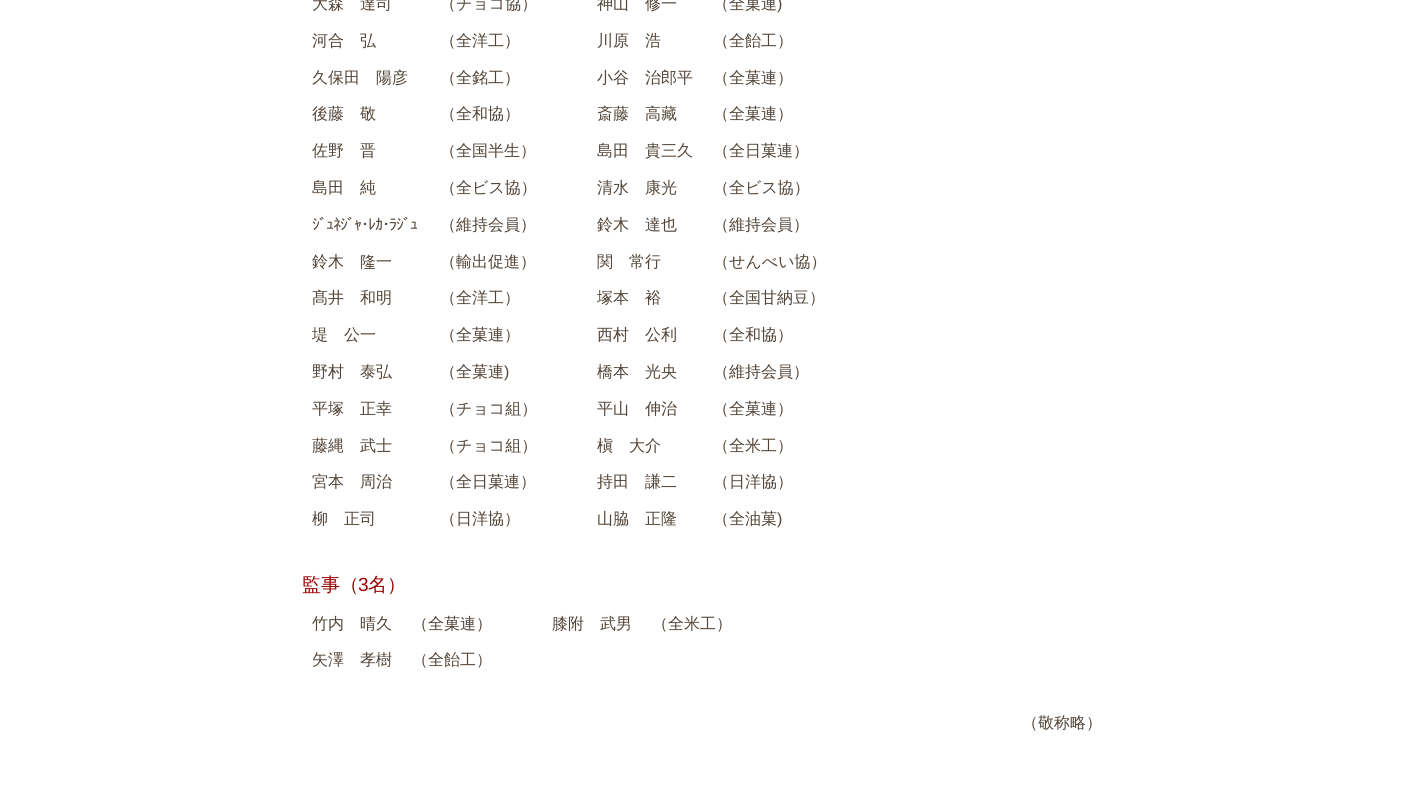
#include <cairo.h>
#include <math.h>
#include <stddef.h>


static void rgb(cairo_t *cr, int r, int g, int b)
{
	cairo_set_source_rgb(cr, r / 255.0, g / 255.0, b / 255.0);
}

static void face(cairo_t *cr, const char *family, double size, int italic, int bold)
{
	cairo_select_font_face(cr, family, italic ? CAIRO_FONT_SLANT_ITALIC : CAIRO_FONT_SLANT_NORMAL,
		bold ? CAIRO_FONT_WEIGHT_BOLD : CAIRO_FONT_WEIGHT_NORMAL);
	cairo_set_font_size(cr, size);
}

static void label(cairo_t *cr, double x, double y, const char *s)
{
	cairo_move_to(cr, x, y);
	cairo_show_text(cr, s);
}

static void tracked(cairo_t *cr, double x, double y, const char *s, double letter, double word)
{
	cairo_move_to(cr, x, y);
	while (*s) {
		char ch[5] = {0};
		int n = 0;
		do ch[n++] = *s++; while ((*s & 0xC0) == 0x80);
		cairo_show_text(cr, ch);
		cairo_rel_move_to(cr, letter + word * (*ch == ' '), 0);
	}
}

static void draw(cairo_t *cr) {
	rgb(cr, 255, 255, 255);
	cairo_paint(cr);
	face(cr, "WenQuanYi Zen Hei Medium", 16, 0, 0);
	rgb(cr, 82, 68, 55);
	label(cr, 312, 9, "大森　達司");
	label(cr, 440, 9, "（チョコ協）");
	label(cr, 312, 46, "河合　弘");
	label(cr, 440, 46, "（全洋工）");
	label(cr, 312, 83, "久保田　陽彦");
	label(cr, 440, 83, "（全銘工）");
	label(cr, 312, 119, "後藤　敬");
	label(cr, 440, 119, "（全和協）");
	label(cr, 312, 156, "佐野　晋");
	label(cr, 440, 156, "（全国半生）");
	label(cr, 312, 193, "島田　純");
	label(cr, 440, 193, "（全ビス協）");
	face(cr, "IPAPGothic", 16, 0, 0);
	tracked(cr, 312, 230, "ｼﾞｭﾈｼﾞｬ･ﾚｶ･ﾗｼﾞｭ", -1, 0);
	face(cr, "WenQuanYi Zen Hei Medium", 16, 0, 0);
	label(cr, 440, 230, "（維持会員）");
	label(cr, 312, 267, "鈴木　隆一");
	label(cr, 440, 267, "（輸出促進）");
	label(cr, 312, 303, "髙井　和明");
	label(cr, 440, 303, "（全洋工）");
	label(cr, 312, 340, "堤　公一");
	label(cr, 440, 340, "（全菓連）");
	label(cr, 312, 377, "野村　泰弘");
	label(cr, 440, 377, "（全菓連");
	face(cr, "Liberation Sans", 16, 0, 0);
	label(cr, 504, 377, ")");
	face(cr, "WenQuanYi Zen Hei Medium", 16, 0, 0);
	label(cr, 312, 414, "平塚　正幸");
	label(cr, 440, 414, "（チョコ組）");
	label(cr, 312, 451, "藤縄　武士");
	label(cr, 440, 451, "（チョコ組）");
	label(cr, 312, 487, "宮本　周治");
	label(cr, 440, 487, "（全日菓連）");
	label(cr, 312, 524, "柳　正司");
	label(cr, 440, 524, "（日洋協）");
	label(cr, 597, 9, "神山　修一");
	label(cr, 713, 9, "（全菓連");
	face(cr, "Liberation Sans", 16, 0, 0);
	label(cr, 777, 9, ")");
	face(cr, "WenQuanYi Zen Hei Medium", 16, 0, 0);
	label(cr, 597, 46, "川原　浩");
	label(cr, 713, 46, "（全飴工）");
	label(cr, 597, 83, "小谷　治郎平");
	label(cr, 713, 83, "（全菓連）");
	label(cr, 597, 119, "斎藤　高藏");
	label(cr, 713, 119, "（全菓連）");
	label(cr, 597, 156, "島田　貴三久");
	label(cr, 713, 156, "（全日菓連）");
	label(cr, 597, 193, "清水　康光");
	label(cr, 713, 193, "（全ビス協）");
	label(cr, 597, 230, "鈴木　達也");
	label(cr, 713, 230, "（維持会員）");
	label(cr, 597, 267, "関　常行");
	label(cr, 713, 267, "（せんべい協）");
	label(cr, 597, 303, "塚本　裕");
	label(cr, 713, 303, "（全国甘納豆）");
	label(cr, 597, 340, "西村　公利");
	label(cr, 713, 340, "（全和協）");
	label(cr, 597, 377, "橋本　光央");
	label(cr, 713, 377, "（維持会員）");
	label(cr, 597, 414, "平山　伸治");
	label(cr, 713, 414, "（全菓連）");
	label(cr, 597, 451, "槇　大介");
	label(cr, 713, 451, "（全米工）");
	label(cr, 597, 487, "持田　謙二");
	label(cr, 713, 487, "（日洋協）");
	label(cr, 597, 524, "山脇　正隆");
	label(cr, 713, 524, "（全油菓");
	face(cr, "Liberation Sans", 16, 0, 0);
	label(cr, 777, 524, ")");
	face(cr, "WenQuanYi Zen Hei Medium", 19, 0, 0);
	rgb(cr, 153, 0, 0);
	label(cr, 302, 591, "監事（");
	face(cr, "Liberation Sans", 19, 0, 0);
	label(cr, 358, 591, "3");
	face(cr, "WenQuanYi Zen Hei Medium", 19, 0, 0);
	label(cr, 368, 591, "名）");
	face(cr, "WenQuanYi Zen Hei Medium", 16, 0, 0);
	rgb(cr, 82, 68, 55);
	label(cr, 312, 629, "竹内　晴久");
	label(cr, 412, 629, "（全菓連）");
	label(cr, 312, 665, "矢澤　孝樹");
	label(cr, 412, 665, "（全飴工）");
	label(cr, 552, 629, "膝附　武男");
	label(cr, 652, 629, "（全米工）");
	label(cr, 1022, 728, "（敬称略）");
}

int main(void) {
	cairo_surface_t *surface = cairo_image_surface_create(CAIRO_FORMAT_RGB24, 1403, 803);
	cairo_t *cr = cairo_create(surface);
	cairo_font_options_t *options = cairo_font_options_create();
	cairo_font_options_set_hint_metrics(options, CAIRO_HINT_METRICS_OFF);
	cairo_font_options_set_hint_style(options, CAIRO_HINT_STYLE_NONE);
	cairo_set_font_options(cr, options);
	cairo_set_miter_limit(cr, 4);
	draw(cr);
	cairo_surface_write_to_png(surface, "render.png");
	cairo_font_options_destroy(options);
	cairo_destroy(cr);
	cairo_surface_destroy(surface);
	return 0;
}
